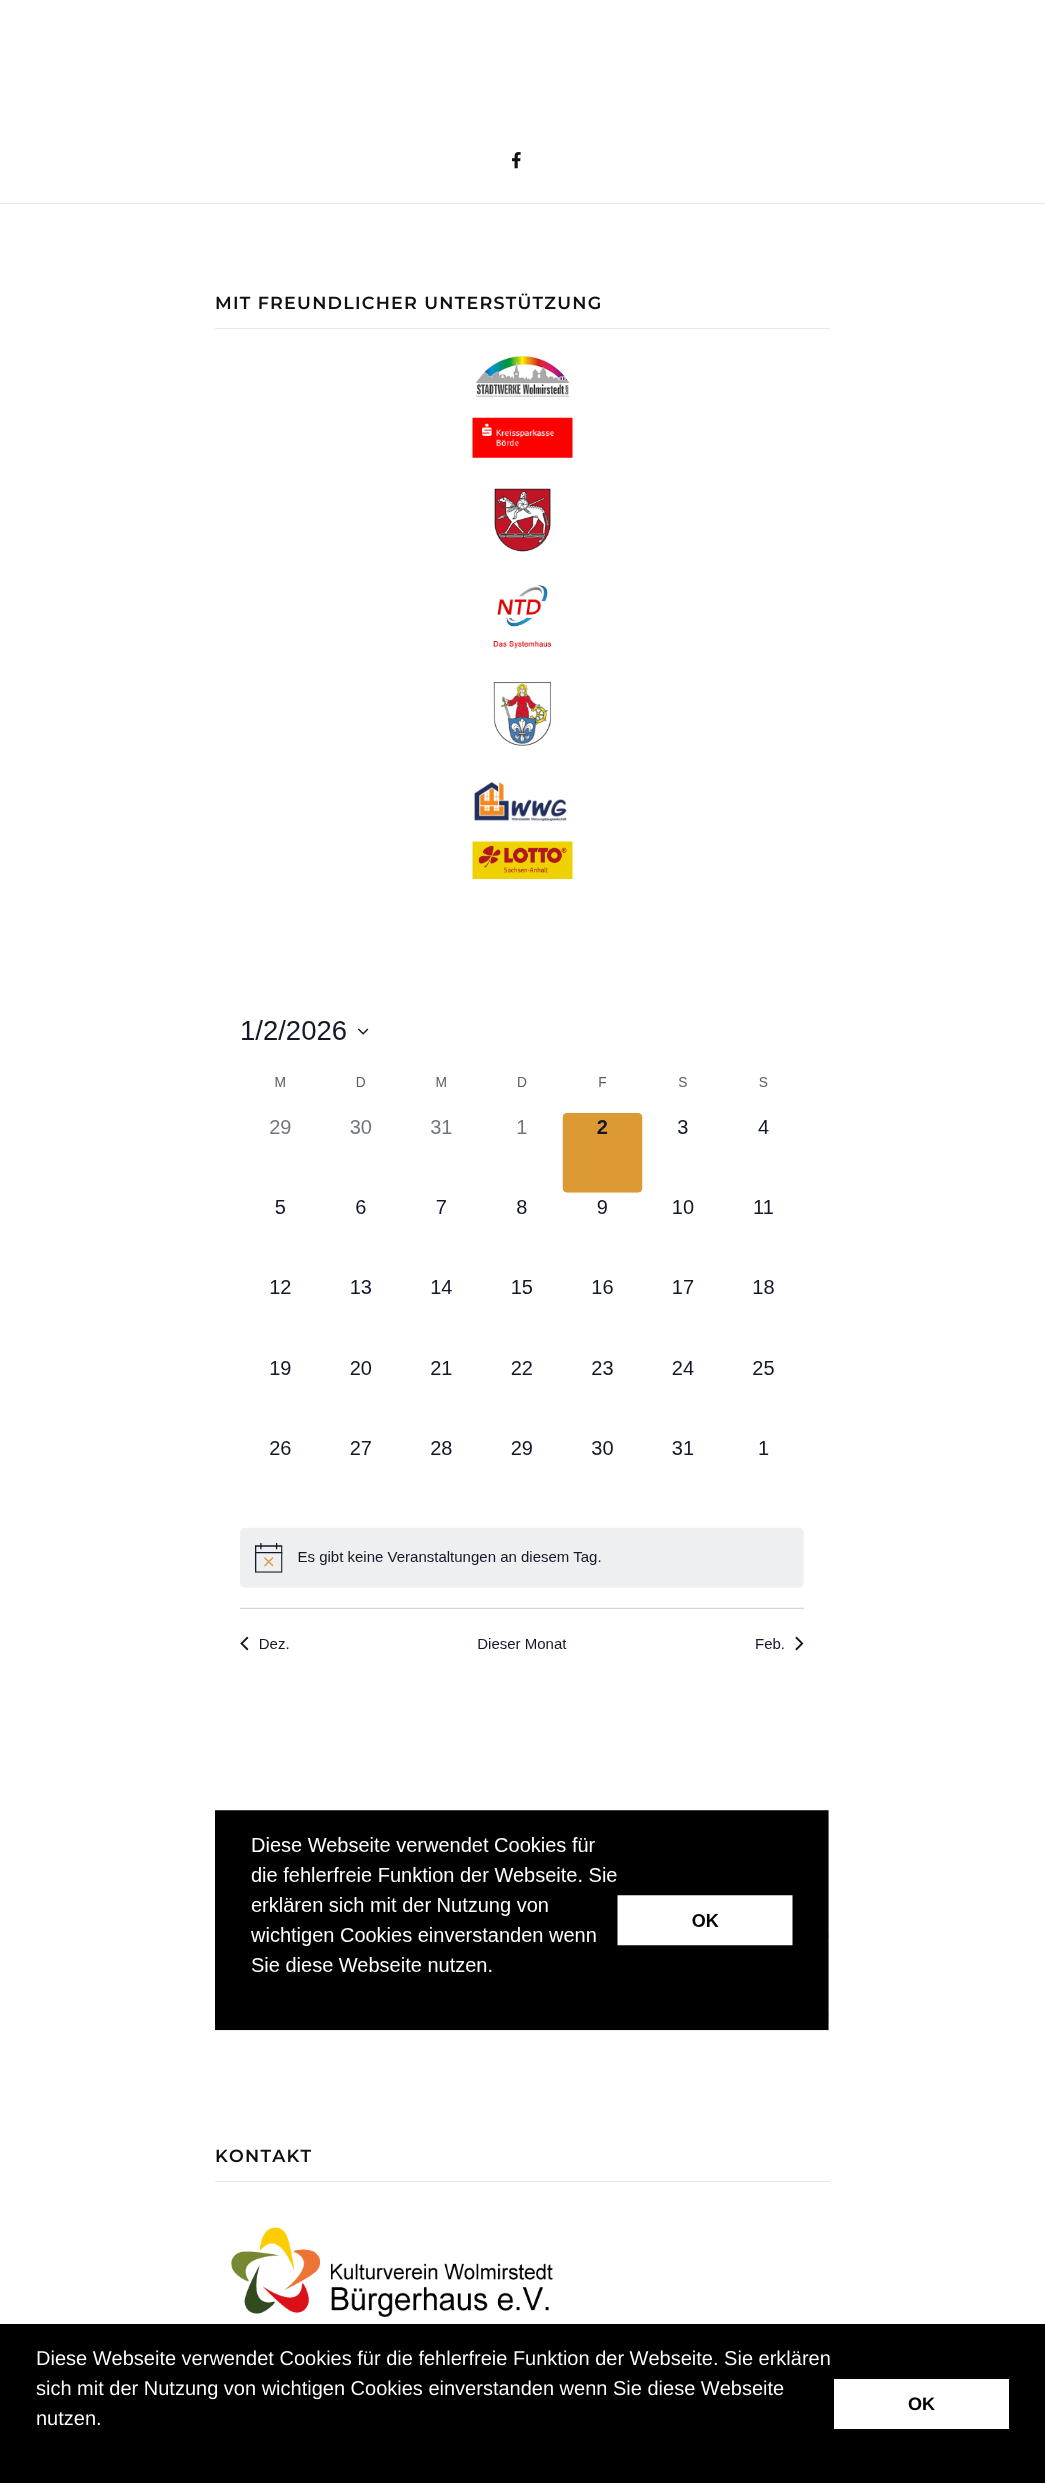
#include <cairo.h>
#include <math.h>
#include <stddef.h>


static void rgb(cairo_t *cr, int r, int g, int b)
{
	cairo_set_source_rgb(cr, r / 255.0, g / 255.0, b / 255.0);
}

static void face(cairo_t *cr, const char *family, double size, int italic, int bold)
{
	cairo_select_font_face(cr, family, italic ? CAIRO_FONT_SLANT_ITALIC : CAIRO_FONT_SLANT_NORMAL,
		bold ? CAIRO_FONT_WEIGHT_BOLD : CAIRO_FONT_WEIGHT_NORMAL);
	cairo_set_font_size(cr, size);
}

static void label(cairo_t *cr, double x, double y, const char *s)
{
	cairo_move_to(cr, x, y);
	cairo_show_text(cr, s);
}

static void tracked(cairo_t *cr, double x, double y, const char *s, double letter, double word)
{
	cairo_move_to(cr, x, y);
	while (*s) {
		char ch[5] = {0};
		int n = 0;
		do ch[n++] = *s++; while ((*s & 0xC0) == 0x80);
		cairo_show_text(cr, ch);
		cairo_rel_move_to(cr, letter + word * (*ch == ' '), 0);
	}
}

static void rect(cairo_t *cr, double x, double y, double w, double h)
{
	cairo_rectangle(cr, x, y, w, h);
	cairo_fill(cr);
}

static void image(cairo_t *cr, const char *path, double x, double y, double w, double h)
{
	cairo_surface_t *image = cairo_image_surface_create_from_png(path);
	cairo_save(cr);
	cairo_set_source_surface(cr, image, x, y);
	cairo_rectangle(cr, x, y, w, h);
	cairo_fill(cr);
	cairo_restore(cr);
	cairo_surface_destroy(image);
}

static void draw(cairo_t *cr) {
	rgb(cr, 255, 255, 255);
	cairo_paint(cr);
	image(cr, "image0.png", 512, 152, 9, 17);
	rgb(cr, 232, 232, 232);
	rect(cr, 0, 203, 1045, 1);
	rect(cr, 215, 328, 615, 1);
	face(cr, "Montserrat SemiBold", 17.5, 0, 0);
	rgb(cr, 17, 17, 17);
	tracked(cr, 215, 309, "MIT FREUNDLICHER UNTERSTÜTZUNG", 1.25, 0);
	image(cr, "image1.png", 475, 355, 95, 42);
	image(cr, "image2.png", 472, 417, 101, 41);
	image(cr, "image3.png", 494, 488, 57, 64);
	image(cr, "image4.png", 493, 585, 59, 64);
	image(cr, "image5.png", 493, 681, 59, 65);
	image(cr, "image6.png", 474, 781, 93, 41);
	image(cr, "image7.png", 472, 841, 101, 38);
	image(cr, "image8.png", 215, 1020, 614, 1011);
	rgb(cr, 232, 232, 232);
	rect(cr, 215, 2181, 615, 1);
	rgb(cr, 17, 17, 17);
	tracked(cr, 215, 2162, "KONTAKT", 1.25, 0);
	image(cr, "image9.png", 231, 2227, 322, 90);
	rgb(cr, 0, 0, 0);
	rect(cr, 0, 2324, 1045, 159);
	face(cr, "Liberation Sans", 20, 0, 0);
	rgb(cr, 255, 255, 255);
	label(cr, 36, 2365, "Diese Webseite verwendet Cookies für die fehlerfreie Funktion der Webseite. Sie erklären");
	label(cr, 36, 2395, "sich mit der Nutzung von wichtigen Cookies einverstanden wenn Sie diese Webseite");
	label(cr, 36, 2425, "nutzen.");
	rect(cr, 834, 2379, 175, 50);
	face(cr, "Liberation Sans", 18, 0, 1);
	rgb(cr, 0, 0, 0);
	label(cr, 908, 2410, "OK");
}

int main(void) {
	cairo_surface_t *surface = cairo_image_surface_create(CAIRO_FORMAT_RGB24, 1045, 2483);
	cairo_t *cr = cairo_create(surface);
	cairo_font_options_t *options = cairo_font_options_create();
	cairo_font_options_set_hint_metrics(options, CAIRO_HINT_METRICS_OFF);
	cairo_font_options_set_hint_style(options, CAIRO_HINT_STYLE_NONE);
	cairo_set_font_options(cr, options);
	cairo_set_miter_limit(cr, 4);
	draw(cr);
	cairo_surface_write_to_png(surface, "render.png");
	cairo_font_options_destroy(options);
	cairo_destroy(cr);
	cairo_surface_destroy(surface);
	return 0;
}
